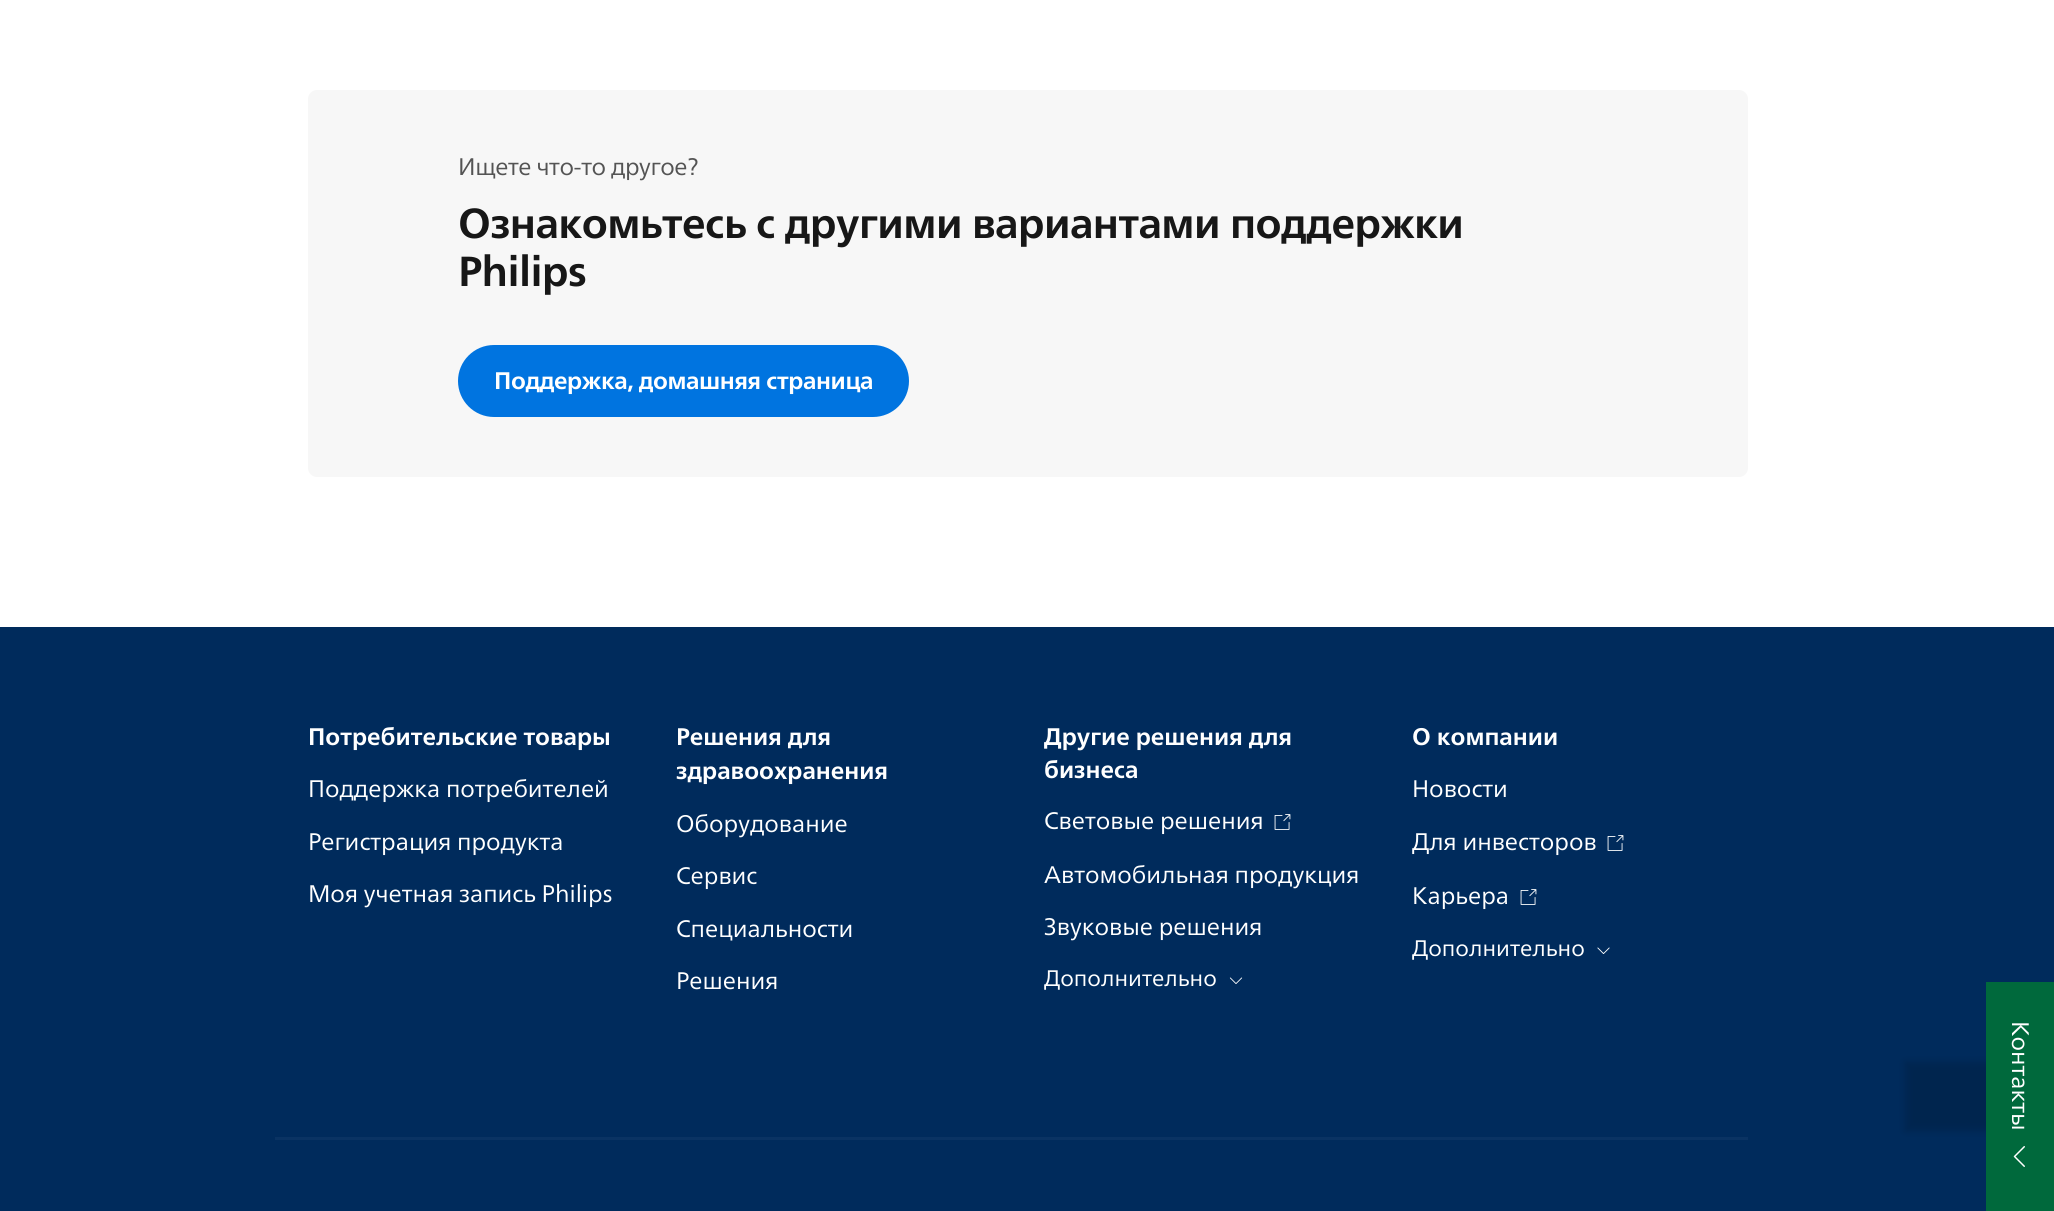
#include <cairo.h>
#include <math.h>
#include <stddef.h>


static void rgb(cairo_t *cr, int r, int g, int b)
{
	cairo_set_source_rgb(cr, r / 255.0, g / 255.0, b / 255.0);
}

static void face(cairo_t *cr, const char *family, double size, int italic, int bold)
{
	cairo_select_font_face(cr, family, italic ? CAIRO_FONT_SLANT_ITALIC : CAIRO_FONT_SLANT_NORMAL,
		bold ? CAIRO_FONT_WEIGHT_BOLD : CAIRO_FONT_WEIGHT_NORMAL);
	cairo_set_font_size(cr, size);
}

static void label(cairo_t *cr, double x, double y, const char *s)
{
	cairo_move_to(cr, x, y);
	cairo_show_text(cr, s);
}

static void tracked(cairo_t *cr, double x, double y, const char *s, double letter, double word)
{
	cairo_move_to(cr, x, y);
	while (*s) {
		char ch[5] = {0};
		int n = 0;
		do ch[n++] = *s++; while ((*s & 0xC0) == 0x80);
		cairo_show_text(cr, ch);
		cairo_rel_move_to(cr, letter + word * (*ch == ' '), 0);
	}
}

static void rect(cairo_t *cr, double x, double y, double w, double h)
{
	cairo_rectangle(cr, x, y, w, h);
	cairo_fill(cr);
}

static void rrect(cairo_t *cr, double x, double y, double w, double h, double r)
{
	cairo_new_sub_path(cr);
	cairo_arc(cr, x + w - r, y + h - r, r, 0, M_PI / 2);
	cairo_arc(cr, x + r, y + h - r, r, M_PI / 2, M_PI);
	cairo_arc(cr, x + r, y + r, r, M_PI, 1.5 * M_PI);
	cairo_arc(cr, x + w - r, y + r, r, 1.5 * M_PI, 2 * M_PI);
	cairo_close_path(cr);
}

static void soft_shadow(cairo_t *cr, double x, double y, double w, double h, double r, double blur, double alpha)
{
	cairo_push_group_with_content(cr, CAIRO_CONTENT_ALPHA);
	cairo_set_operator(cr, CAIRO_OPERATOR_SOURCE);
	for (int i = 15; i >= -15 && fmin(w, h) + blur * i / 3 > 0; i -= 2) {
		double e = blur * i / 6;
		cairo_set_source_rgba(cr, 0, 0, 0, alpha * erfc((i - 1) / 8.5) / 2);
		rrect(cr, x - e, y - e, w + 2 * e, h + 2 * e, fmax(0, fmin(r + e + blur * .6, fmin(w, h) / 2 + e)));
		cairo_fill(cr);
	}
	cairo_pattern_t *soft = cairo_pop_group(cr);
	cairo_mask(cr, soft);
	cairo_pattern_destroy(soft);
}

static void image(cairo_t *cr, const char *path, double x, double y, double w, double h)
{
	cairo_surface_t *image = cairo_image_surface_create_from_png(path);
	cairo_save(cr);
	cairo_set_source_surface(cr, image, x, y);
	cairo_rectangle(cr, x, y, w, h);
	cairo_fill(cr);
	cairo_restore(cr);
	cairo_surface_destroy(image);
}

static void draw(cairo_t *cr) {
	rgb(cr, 255, 255, 255);
	cairo_paint(cr);
	rgb(cr, 247, 247, 247);
	rrect(cr, 308, 90, 1440, 387, 9);
	cairo_fill(cr);
	face(cr, "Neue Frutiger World", 24, 0, 0);
	rgb(cr, 84, 84, 84);
	tracked(cr, 458, 175, "Ищете что-то другое?", -0.4, 0);
	face(cr, "Neue Frutiger World", 42, 0, 1);
	rgb(cr, 23, 23, 23);
	tracked(cr, 458, 238, "Ознакомьтесь с другими вариантами поддержки", -0.55, 0);
	tracked(cr, 458, 286, "Philips", -0.55, 0);
	rgb(cr, 0, 116, 224);
	rrect(cr, 458, 345, 451, 72, 36);
	cairo_fill(cr);
	face(cr, "Neue Frutiger World", 24, 0, 1);
	rgb(cr, 255, 255, 255);
	tracked(cr, 494, 389, "Поддержка, домашняя страница", -0.4, 0);
	rgb(cr, 0, 43, 92);
	rect(cr, 0, 627, 2054, 584);
	rgb(cr, 255, 255, 255);
	label(cr, 308, 745, "Потребительские товары");
	face(cr, "Neue Frutiger World", 24, 0, 0);
	label(cr, 308, 797, "Поддержка потребителей");
	label(cr, 308, 850, "Регистрация продукта");
	label(cr, 308, 902, "Моя учетная запись Philips");
	face(cr, "Neue Frutiger World", 24, 0, 1);
	label(cr, 676, 745, "Решения для");
	label(cr, 676, 779, "здравоохранения");
	face(cr, "Neue Frutiger World", 24, 0, 0);
	label(cr, 676, 832, "Оборудование");
	label(cr, 676, 884, "Сервис");
	label(cr, 676, 937, "Специальности");
	label(cr, 676, 989, "Решения");
	face(cr, "Neue Frutiger World", 24, 0, 1);
	label(cr, 1044, 745, "Другие решения для");
	label(cr, 1044, 778, "бизнеса");
	face(cr, "Neue Frutiger World", 24, 0, 0);
	label(cr, 1044, 829, "Световые решения");
	image(cr, "image0.png", 1274, 814, 17, 16);
	label(cr, 1044, 883, "Автомобильная продукция");
	label(cr, 1044, 935, "Звуковые решения");
	face(cr, "Neue Frutiger World", 22.5, 0, 0);
	label(cr, 1044, 986, "Дополнительно");
	image(cr, "image1.png", 1229, 977, 14, 7);
	face(cr, "Neue Frutiger World", 24, 0, 1);
	label(cr, 1412, 745, "О компании");
	face(cr, "Neue Frutiger World", 24, 0, 0);
	label(cr, 1412, 797, "Новости");
	label(cr, 1412, 850, "Для инвесторов");
	image(cr, "image0.png", 1607, 835, 17, 16);
	label(cr, 1412, 904, "Карьера");
	image(cr, "image0.png", 1520, 889, 17, 16);
	face(cr, "Neue Frutiger World", 22.5, 0, 0);
	label(cr, 1412, 956, "Дополнительно");
	image(cr, "image2.png", 1597, 947, 13, 7);
	rgb(cr, 10, 51, 99);
	rect(cr, 275, 1137, 1473, 3);
	rgb(cr, 0, 0, 0);
	soft_shadow(cr, 1905, 1062, 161, 69, 0, 4, 0.15);
	rgb(cr, 0, 105, 60);
	rect(cr, 1986, 982, 68, 229);
	face(cr, "Neue Frutiger World", 24, 0, 0);
	rgb(cr, 255, 255, 255);
	cairo_save(cr);
	cairo_translate(cr, 2012, 1021);
	cairo_rotate(cr, 90 * M_PI / 180);
	label(cr, 0, 0, "Контакты");
	cairo_restore(cr);
	image(cr, "image3.png", 2013, 1146, 12, 21);
}

int main(void) {
	cairo_surface_t *surface = cairo_image_surface_create(CAIRO_FORMAT_RGB24, 2054, 1211);
	cairo_t *cr = cairo_create(surface);
	cairo_font_options_t *options = cairo_font_options_create();
	cairo_font_options_set_hint_metrics(options, CAIRO_HINT_METRICS_OFF);
	cairo_font_options_set_hint_style(options, CAIRO_HINT_STYLE_NONE);
	cairo_set_font_options(cr, options);
	cairo_set_miter_limit(cr, 4);
	draw(cr);
	cairo_surface_write_to_png(surface, "render.png");
	cairo_font_options_destroy(options);
	cairo_destroy(cr);
	cairo_surface_destroy(surface);
	return 0;
}
